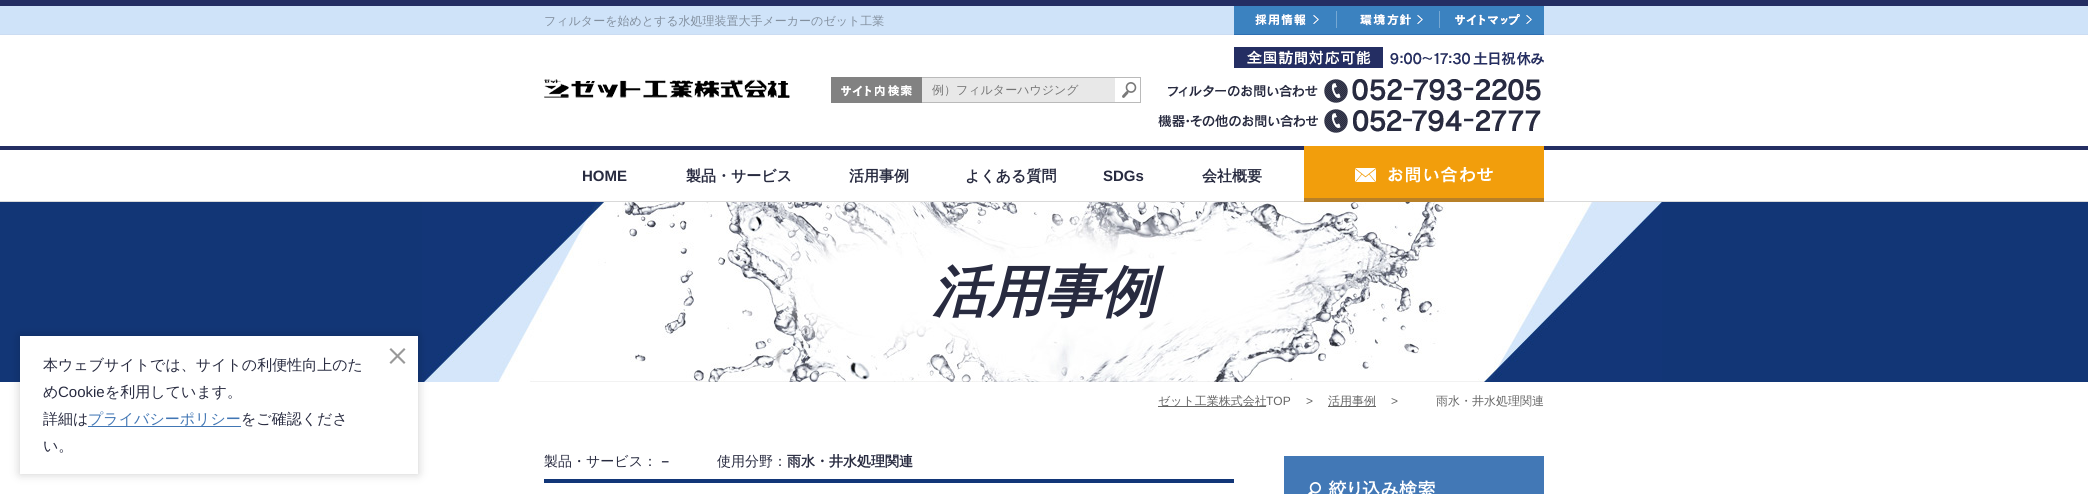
#include <cairo.h>
#include <math.h>
#include <stddef.h>


static void rgb(cairo_t *cr, int r, int g, int b)
{
	cairo_set_source_rgb(cr, r / 255.0, g / 255.0, b / 255.0);
}

static void face(cairo_t *cr, const char *family, double size, int italic, int bold)
{
	cairo_select_font_face(cr, family, italic ? CAIRO_FONT_SLANT_ITALIC : CAIRO_FONT_SLANT_NORMAL,
		bold ? CAIRO_FONT_WEIGHT_BOLD : CAIRO_FONT_WEIGHT_NORMAL);
	cairo_set_font_size(cr, size);
}

static void label(cairo_t *cr, double x, double y, const char *s)
{
	cairo_move_to(cr, x, y);
	cairo_show_text(cr, s);
}

static void rect(cairo_t *cr, double x, double y, double w, double h)
{
	cairo_rectangle(cr, x, y, w, h);
	cairo_fill(cr);
}

static void rrect(cairo_t *cr, double x, double y, double w, double h, double r)
{
	cairo_new_sub_path(cr);
	cairo_arc(cr, x + w - r, y + h - r, r, 0, M_PI / 2);
	cairo_arc(cr, x + r, y + h - r, r, M_PI / 2, M_PI);
	cairo_arc(cr, x + r, y + r, r, M_PI, 1.5 * M_PI);
	cairo_arc(cr, x + w - r, y + r, r, 1.5 * M_PI, 2 * M_PI);
	cairo_close_path(cr);
}

static void soft_shadow(cairo_t *cr, double x, double y, double w, double h, double r, double blur, double alpha)
{
	cairo_push_group_with_content(cr, CAIRO_CONTENT_ALPHA);
	cairo_set_operator(cr, CAIRO_OPERATOR_SOURCE);
	for (int i = 15; i >= -15 && fmin(w, h) + blur * i / 3 > 0; i -= 2) {
		double e = blur * i / 6;
		cairo_set_source_rgba(cr, 0, 0, 0, alpha * erfc((i - 1) / 8.5) / 2);
		rrect(cr, x - e, y - e, w + 2 * e, h + 2 * e, fmax(0, fmin(r + e + blur * .6, fmin(w, h) / 2 + e)));
		cairo_fill(cr);
	}
	cairo_pattern_t *soft = cairo_pop_group(cr);
	cairo_mask(cr, soft);
	cairo_pattern_destroy(soft);
}

static void image(cairo_t *cr, const char *path, double x, double y, double w, double h)
{
	cairo_surface_t *image = cairo_image_surface_create_from_png(path);
	cairo_save(cr);
	cairo_set_source_surface(cr, image, x, y);
	cairo_rectangle(cr, x, y, w, h);
	cairo_fill(cr);
	cairo_restore(cr);
	cairo_surface_destroy(image);
}

static void draw(cairo_t *cr) {
	rgb(cr, 255, 255, 255);
	cairo_paint(cr);
	rgb(cr, 18, 54, 118);
	rect(cr, 0, 202, 2088, 180);
	image(cr, "image9.png", 422, 202, 1240, 180);
	rgb(cr, 0, 0, 0);
	soft_shadow(cr, 20, 336, 398, 138, 0, 5, 0.2);
	rgb(cr, 255, 255, 255);
	rect(cr, 20, 336, 398, 138);
	face(cr, "WenQuanYi Zen Hei Medium", 15, 0, 0);
	rgb(cr, 40, 43, 64);
	label(cr, 43, 370, "本ウェブサイトでは、サイトの利便性向上のた");
	label(cr, 43, 397, "め");
	face(cr, "Liberation Sans", 15, 0, 0);
	label(cr, 58, 397, "Cookie");
	face(cr, "WenQuanYi Zen Hei Medium", 15, 0, 0);
	label(cr, 105, 397, "を利用しています。");
	label(cr, 43, 424, "詳細は");
	rgb(cr, 65, 118, 180);
	rect(cr, 88, 426, 153, 1);
	label(cr, 88, 424, "プライバシーポリシー");
	rgb(cr, 40, 43, 64);
	label(cr, 241, 424, "をご確認くださ");
	label(cr, 43, 451, "い。");
	rgb(cr, 153, 153, 153);
	cairo_new_path(cr);
	cairo_move_to(cr, 391, 348);
	cairo_line_to(cr, 405.5, 362.5);
	cairo_line_to(cr, 404, 364);
	cairo_line_to(cr, 389.5, 349.5);
	cairo_close_path(cr);
	cairo_fill(cr);
	cairo_new_path(cr);
	cairo_move_to(cr, 389.5, 362.5);
	cairo_line_to(cr, 404, 348);
	cairo_line_to(cr, 405.5, 349.5);
	cairo_line_to(cr, 391, 364);
	cairo_close_path(cr);
	cairo_fill(cr);
	rgb(cr, 36, 46, 99);
	rect(cr, 0, 0, 2088, 6);
	rect(cr, 0, 146, 2088, 4);
	rgb(cr, 207, 227, 249);
	rect(cr, 0, 6, 2088, 28);
	rgb(cr, 203, 220, 242);
	rect(cr, 0, 34, 2088, 1);
	face(cr, "WenQuanYi Zen Hei Medium", 12, 0, 0);
	rgb(cr, 131, 144, 159);
	label(cr, 544, 25, "フィルターを始めとする水処理装置大手メーカーのゼット工業");
	rgb(cr, 59, 130, 192);
	rect(cr, 1234, 6, 102, 8);
	image(cr, "image0.png", 1234, 14, 102, 21);
	rect(cr, 1336, 6, 208, 5);
	image(cr, "image1.png", 1336, 11, 103, 24);
	image(cr, "image2.png", 1439, 11, 105, 24);
	image(cr, "image3.png", 544, 79, 246, 19);
	image(cr, "image4.png", 831, 77, 91, 26);
	rgb(cr, 186, 186, 186);
	rect(cr, 922, 77, 219, 1);
	rect(cr, 1140, 77, 1, 26);
	rect(cr, 922, 102, 219, 1);
	rgb(cr, 232, 232, 232);
	rect(cr, 922, 78, 193, 24);
	rgb(cr, 117, 117, 117);
	label(cr, 932, 94, "例）フィルターハウジング");
	image(cr, "image5.png", 1122, 82, 15, 16);
	image(cr, "image6.png", 1234, 47, 310, 21);
	image(cr, "image7.png", 1158, 79, 383, 54);
	rgb(cr, 217, 217, 217);
	rect(cr, 0, 201, 2088, 1);
	face(cr, "Liberation Sans", 15, 0, 1);
	rgb(cr, 40, 43, 64);
	label(cr, 582, 181, "HOME");
	face(cr, "WenQuanYi Zen Hei", 15, 0, 1);
	label(cr, 686, 181, "製品・サービス");
	label(cr, 849, 181, "活用事例");
	label(cr, 965, 181, "よくある質問");
	face(cr, "Liberation Sans", 15, 0, 1);
	label(cr, 1103, 181, "SDGs");
	face(cr, "WenQuanYi Zen Hei", 15, 0, 1);
	label(cr, 1202, 181, "会社概要");
	rgb(cr, 242, 158, 12);
	rect(cr, 1304, 146, 240, 52);
	image(cr, "image8.png", 1355, 166, 138, 17);
	rgb(cr, 184, 128, 40);
	rect(cr, 1304, 198, 240, 4);
	face(cr, "WenQuanYi Zen Hei", 56, 1, 1);
	rgb(cr, 40, 43, 64);
	label(cr, 932, 311, "活用事例");
	rgb(cr, 102, 102, 102);
	rect(cr, 1158, 406, 108, 1);
	face(cr, "WenQuanYi Zen Hei Medium", 12, 0, 0);
	label(cr, 1158, 405, "ゼット工業株式会社");
	face(cr, "Liberation Sans", 12, 0, 0);
	label(cr, 1266, 405, "TOP");
	label(cr, 1306, 405, ">");
	rect(cr, 1328, 406, 48, 1);
	face(cr, "WenQuanYi Zen Hei Medium", 12, 0, 0);
	label(cr, 1328, 405, "活用事例");
	face(cr, "Liberation Sans", 12, 0, 0);
	label(cr, 1391, 405, ">");
	face(cr, "WenQuanYi Zen Hei Medium", 12, 0, 0);
	label(cr, 1436, 405, "雨水・井水処理関連");
	face(cr, "WenQuanYi Zen Hei Medium", 14, 0, 0);
	rgb(cr, 40, 43, 64);
	label(cr, 544, 466, "製品・サービス：");
	face(cr, "WenQuanYi Zen Hei", 14, 0, 1);
	label(cr, 658, 466, "－");
	face(cr, "WenQuanYi Zen Hei Medium", 14, 0, 0);
	label(cr, 717, 466, "使用分野：");
	face(cr, "WenQuanYi Zen Hei", 14, 0, 1);
	label(cr, 787, 466, "雨水・井水処理関連");
	rgb(cr, 18, 54, 120);
	rect(cr, 544, 479, 690, 4);
	rgb(cr, 66, 120, 182);
	rect(cr, 1284, 456, 260, 38);
	image(cr, "image10.png", 1307, 480, 128, 14);
}

int main(void) {
	cairo_surface_t *surface = cairo_image_surface_create(CAIRO_FORMAT_RGB24, 2088, 494);
	cairo_t *cr = cairo_create(surface);
	cairo_font_options_t *options = cairo_font_options_create();
	cairo_font_options_set_hint_metrics(options, CAIRO_HINT_METRICS_OFF);
	cairo_font_options_set_hint_style(options, CAIRO_HINT_STYLE_NONE);
	cairo_set_font_options(cr, options);
	cairo_set_miter_limit(cr, 4);
	draw(cr);
	cairo_surface_write_to_png(surface, "render.png");
	cairo_font_options_destroy(options);
	cairo_destroy(cr);
	cairo_surface_destroy(surface);
	return 0;
}
